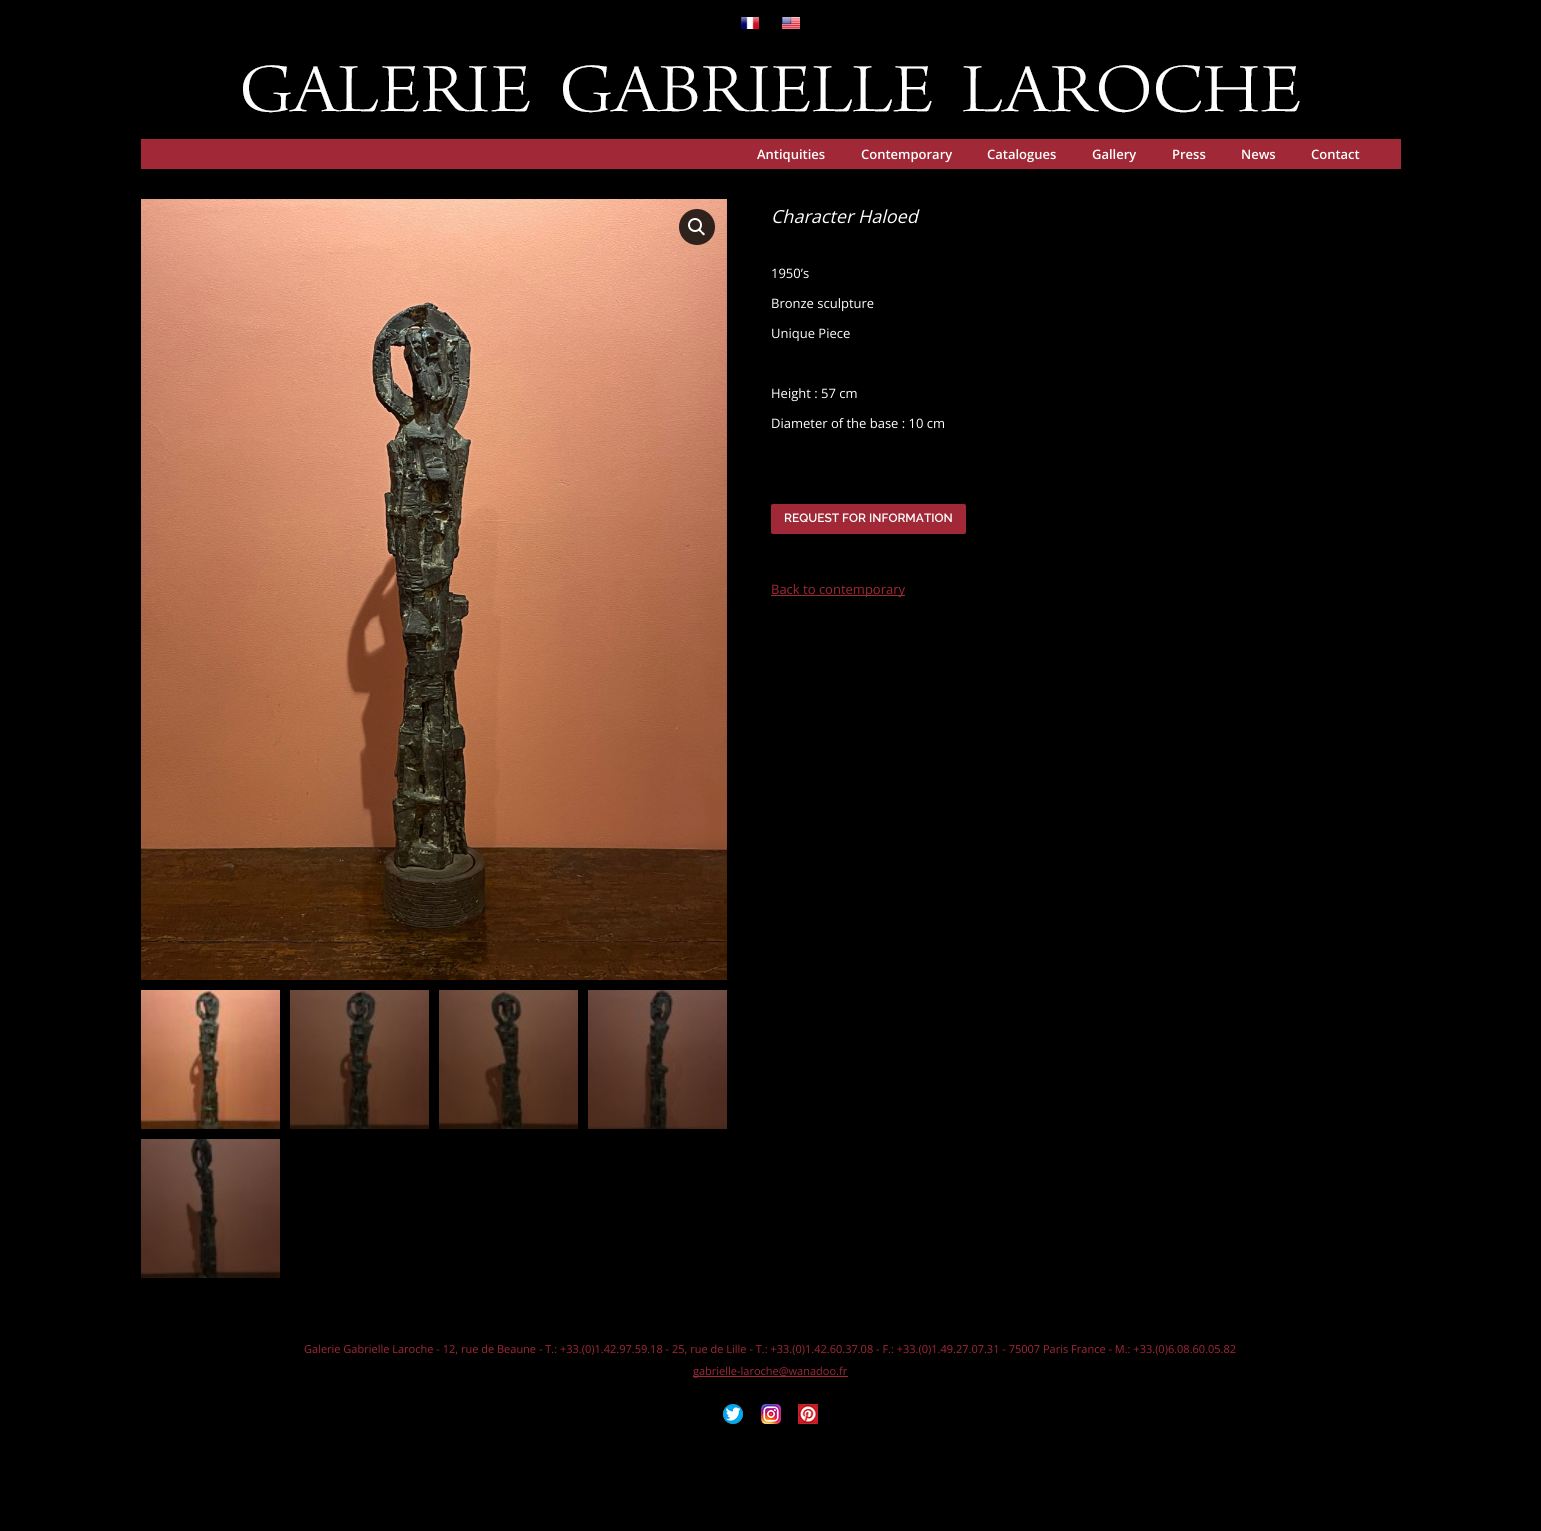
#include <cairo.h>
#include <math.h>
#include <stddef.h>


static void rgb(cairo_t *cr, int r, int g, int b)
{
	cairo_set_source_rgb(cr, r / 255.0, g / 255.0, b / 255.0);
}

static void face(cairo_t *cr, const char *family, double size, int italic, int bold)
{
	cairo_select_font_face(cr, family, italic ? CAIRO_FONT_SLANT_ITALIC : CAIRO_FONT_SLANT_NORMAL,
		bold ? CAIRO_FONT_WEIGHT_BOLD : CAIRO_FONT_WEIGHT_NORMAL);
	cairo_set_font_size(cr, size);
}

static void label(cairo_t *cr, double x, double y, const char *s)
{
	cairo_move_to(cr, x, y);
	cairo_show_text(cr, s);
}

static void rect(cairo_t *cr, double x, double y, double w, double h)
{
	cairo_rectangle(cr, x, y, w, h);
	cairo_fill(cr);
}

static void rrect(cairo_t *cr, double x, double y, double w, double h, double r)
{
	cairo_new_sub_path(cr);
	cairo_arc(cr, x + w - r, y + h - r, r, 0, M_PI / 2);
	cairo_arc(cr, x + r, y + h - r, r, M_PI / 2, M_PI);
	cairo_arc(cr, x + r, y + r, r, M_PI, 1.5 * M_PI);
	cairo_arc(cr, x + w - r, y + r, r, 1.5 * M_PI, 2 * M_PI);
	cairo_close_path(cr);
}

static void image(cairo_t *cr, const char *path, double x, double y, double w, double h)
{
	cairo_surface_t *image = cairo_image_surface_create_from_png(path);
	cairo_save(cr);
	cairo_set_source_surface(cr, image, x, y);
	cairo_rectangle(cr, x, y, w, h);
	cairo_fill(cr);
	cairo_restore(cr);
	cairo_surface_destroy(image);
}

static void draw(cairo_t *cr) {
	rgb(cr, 0, 0, 0);
	cairo_paint(cr);
	image(cr, "image0.png", 741, 17, 18, 12);
	image(cr, "image1.png", 782, 17, 18, 12);
	image(cr, "image2.png", 243, 65, 1057, 48);
	rgb(cr, 161, 40, 54);
	rect(cr, 141, 139, 1260, 30);
	face(cr, "Open Sans SemiBold", 13, 0, 0);
	rgb(cr, 255, 255, 255);
	label(cr, 757, 159, "Antiquities");
	label(cr, 861, 159, "Contemporary");
	label(cr, 987, 159, "Catalogues");
	label(cr, 1092, 159, "Gallery");
	label(cr, 1172, 159, "Press");
	label(cr, 1241, 159, "News");
	label(cr, 1311, 159, "Contact");
	image(cr, "image3.png", 141, 199, 586, 781);
	cairo_set_source_rgba(cr, 0, 0, 0, 0.8);
	cairo_arc(cr, 697, 227, 18, 0, 2 * M_PI);
	cairo_fill(cr);
	cairo_arc(cr, 695, 225, 6, 0, 2 * M_PI);
	rgb(cr, 255, 255, 255);
	cairo_stroke(cr);
	cairo_new_path(cr);
	cairo_move_to(cr, 698.5, 229);
	cairo_curve_to(cr, 700, 228, 701.5, 230.5, 702, 231.5);
	cairo_curve_to(cr, 703, 232, 705.5, 233.5, 704.5, 235);
	cairo_curve_to(cr, 703, 236, 701.5, 233.5, 701, 232.5);
	cairo_curve_to(cr, 700, 232, 697.5, 230.5, 698.5, 229);
	cairo_close_path(cr);
	cairo_fill(cr);
	image(cr, "image4.png", 141, 990, 139, 139);
	image(cr, "image5.png", 290, 990, 139, 139);
	image(cr, "image6.png", 439, 990, 139, 139);
	image(cr, "image7.png", 588, 990, 139, 139);
	image(cr, "image8.png", 141, 1139, 139, 139);
	face(cr, "Open Sans", 18, 1, 0);
	label(cr, 771, 223, "Character Haloed");
	face(cr, "Open Sans", 13, 0, 0);
	label(cr, 771, 278, "1950’s");
	label(cr, 771, 308, "Bronze sculpture");
	label(cr, 771, 338, "Unique Piece");
	label(cr, 771, 398, "Height : 57 cm");
	label(cr, 771, 428, "Diameter of the base : 10 cm");
	rgb(cr, 161, 40, 54);
	rrect(cr, 771, 504, 195, 30, 2);
	cairo_fill(cr);
	face(cr, "Raleway SemiBold", 12, 0, 0);
	rgb(cr, 255, 255, 255);
	label(cr, 784, 522, "REQUEST FOR INFORMATION");
	rgb(cr, 161, 40, 54);
	rect(cr, 771, 595, 134, 1);
	face(cr, "Open Sans", 13, 0, 0);
	label(cr, 771, 594, "Back to contemporary");
	face(cr, "Open Sans", 11, 0, 0);
	label(cr, 304, 1353, "Galerie Gabrielle Laroche - 12, rue de Beaune - T.: +33.(0)1.42.97.59.18 - 25, rue de Lille - T.: +33.(0)1.42.60.37.08 - F.: +33.(0)1.49.27.07.31 - 75007 Paris France - M.: +33.(0)6.08.60.05.82");
	rect(cr, 693, 1376, 155, 1);
	label(cr, 693, 1375, "gabrielle-laroche@wanadoo.fr");
	image(cr, "image9.png", 723, 1404, 20, 20);
	image(cr, "image10.png", 761, 1404, 20, 20);
	image(cr, "image11.png", 798, 1404, 20, 20);
}

int main(void) {
	cairo_surface_t *surface = cairo_image_surface_create(CAIRO_FORMAT_RGB24, 1541, 1531);
	cairo_t *cr = cairo_create(surface);
	cairo_font_options_t *options = cairo_font_options_create();
	cairo_font_options_set_hint_metrics(options, CAIRO_HINT_METRICS_OFF);
	cairo_font_options_set_hint_style(options, CAIRO_HINT_STYLE_NONE);
	cairo_set_font_options(cr, options);
	cairo_set_miter_limit(cr, 4);
	draw(cr);
	cairo_surface_write_to_png(surface, "render.png");
	cairo_font_options_destroy(options);
	cairo_destroy(cr);
	cairo_surface_destroy(surface);
	return 0;
}
